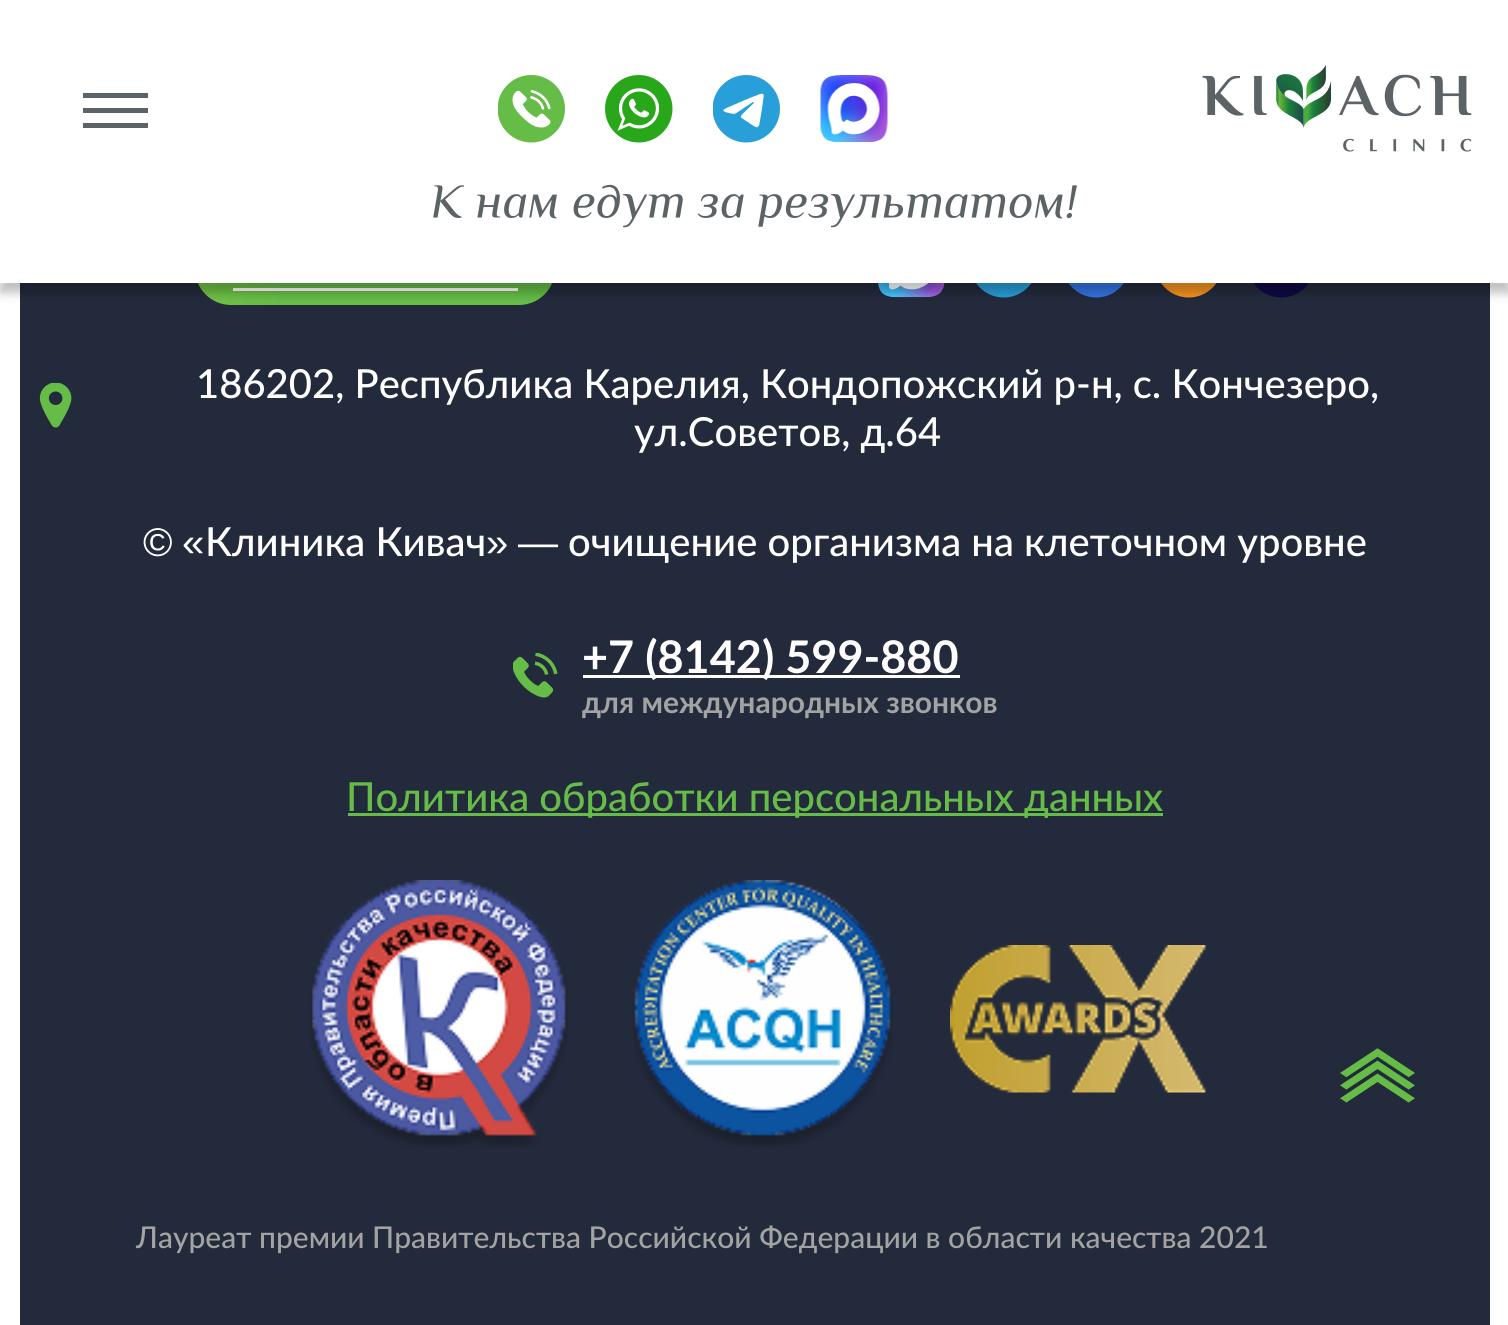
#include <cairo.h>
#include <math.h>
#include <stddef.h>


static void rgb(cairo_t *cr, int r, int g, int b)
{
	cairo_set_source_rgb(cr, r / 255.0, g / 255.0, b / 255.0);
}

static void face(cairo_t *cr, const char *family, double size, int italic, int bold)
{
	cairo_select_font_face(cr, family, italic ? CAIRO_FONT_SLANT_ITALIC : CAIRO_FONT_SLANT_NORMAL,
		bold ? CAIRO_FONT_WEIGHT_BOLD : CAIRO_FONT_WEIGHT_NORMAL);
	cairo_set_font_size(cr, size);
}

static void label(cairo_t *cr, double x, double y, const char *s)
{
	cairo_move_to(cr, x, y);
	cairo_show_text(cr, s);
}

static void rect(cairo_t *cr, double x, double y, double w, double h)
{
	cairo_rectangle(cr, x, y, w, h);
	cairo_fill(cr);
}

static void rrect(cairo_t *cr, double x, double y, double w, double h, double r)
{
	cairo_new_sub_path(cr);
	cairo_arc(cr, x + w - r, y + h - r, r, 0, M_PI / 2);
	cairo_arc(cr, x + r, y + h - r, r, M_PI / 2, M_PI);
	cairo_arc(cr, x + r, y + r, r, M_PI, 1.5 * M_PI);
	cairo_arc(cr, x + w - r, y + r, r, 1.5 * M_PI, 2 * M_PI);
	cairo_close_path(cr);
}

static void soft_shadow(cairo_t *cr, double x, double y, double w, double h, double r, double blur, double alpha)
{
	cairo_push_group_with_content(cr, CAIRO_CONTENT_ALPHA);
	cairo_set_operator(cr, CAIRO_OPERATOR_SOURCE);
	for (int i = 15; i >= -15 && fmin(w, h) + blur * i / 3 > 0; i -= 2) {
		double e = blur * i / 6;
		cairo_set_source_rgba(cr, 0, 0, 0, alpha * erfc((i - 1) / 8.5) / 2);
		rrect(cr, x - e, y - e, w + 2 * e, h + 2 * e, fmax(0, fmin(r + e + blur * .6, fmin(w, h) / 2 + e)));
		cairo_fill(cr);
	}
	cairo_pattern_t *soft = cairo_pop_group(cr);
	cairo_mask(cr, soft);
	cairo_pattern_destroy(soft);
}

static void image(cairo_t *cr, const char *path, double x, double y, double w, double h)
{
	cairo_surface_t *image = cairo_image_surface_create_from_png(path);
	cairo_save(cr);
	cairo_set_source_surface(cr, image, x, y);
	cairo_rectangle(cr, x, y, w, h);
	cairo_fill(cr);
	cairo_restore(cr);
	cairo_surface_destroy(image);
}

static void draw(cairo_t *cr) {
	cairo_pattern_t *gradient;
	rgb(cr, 255, 255, 255);
	cairo_paint(cr);
	rgb(cr, 35, 42, 60);
	rect(cr, 20, 283, 1470, 1042);
	gradient = cairo_pattern_create_linear(555, 269, 15, 269);
	cairo_pattern_add_color_stop_rgba(gradient, 0, 0.396, 0.737, 0.278, 1);
	cairo_pattern_add_color_stop_rgba(gradient, 0.5, 0.396, 0.737, 0.278, 1);
	cairo_pattern_add_color_stop_rgba(gradient, 1, 0.541, 0.804, 0.247, 1);
	cairo_set_source(cr, gradient);
	cairo_pattern_destroy(gradient);
	rrect(cr, 195, 233, 360, 72, 36);
	cairo_fill(cr);
	rgb(cr, 255, 255, 255);
	rect(cr, 233, 288, 285, 3);
	image(cr, "image6.png", 878, 283, 67, 15);
	image(cr, "image7.png", 976, 283, 56, 15);
	image(cr, "image8.png", 1068, 283, 56, 15);
	image(cr, "image9.png", 1161, 283, 56, 15);
	image(cr, "image10.png", 1253, 283, 56, 15);
	rgb(cr, 0, 0, 0);
	soft_shadow(cr, 0, 10, 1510, 283, 0, 5, 0.25);
	rgb(cr, 255, 255, 255);
	rect(cr, 0, 1, 1508, 282);
	rgb(cr, 92, 99, 102);
	rect(cr, 83, 108, 65, 5);
	rect(cr, 83, 93, 65, 5);
	rect(cr, 83, 123, 65, 5);
	image(cr, "image0.png", 498, 75, 67, 68);
	image(cr, "image1.png", 605, 75, 68, 68);
	image(cr, "image2.png", 713, 75, 67, 68);
	image(cr, "image3.png", 820, 75, 68, 68);
	image(cr, "image4.png", 1202, 65, 270, 87);
	image(cr, "image5.png", 433, 184, 644, 44);
	image(cr, "image11.png", 39, 383, 33, 45);
	face(cr, "Lato Medium", 40, 0, 0);
	rgb(cr, 255, 255, 255);
	label(cr, 196, 398, "186202, Республика Карелия, Кондопожский р-н, с. Кончезеро,");
	label(cr, 634, 446, "ул.Советов, д.64");
	face(cr, "Liberation Sans", 40, 0, 0);
	label(cr, 143, 556, "©");
	label(cr, 182, 556, "«");
	face(cr, "Lato Medium", 40, 0, 0);
	label(cr, 205, 556, "Клиника Кивач");
	face(cr, "Liberation Sans", 40, 0, 0);
	label(cr, 486, 556, "»");
	label(cr, 518, 556, "—");
	face(cr, "Lato Medium", 40, 0, 0);
	label(cr, 568, 556, "очищение организма на клеточном уровне");
	image(cr, "image12.png", 513, 653, 45, 45);
	rect(cr, 583, 675, 377, 3);
	face(cr, "Lato", 45, 0, 1);
	label(cr, 582, 673, "+7 (8142) 599-880");
	face(cr, "Lato", 30, 0, 1);
	rgb(cr, 163, 163, 163);
	label(cr, 582, 713, "для международных звонков");
	rgb(cr, 101, 188, 71);
	rect(cr, 348, 813, 815, 3);
	face(cr, "Lato Medium", 40, 0, 0);
	label(cr, 346, 811, "Политика обработки персональных данных");
	image(cr, "image13.png", 310, 880, 258, 268);
	image(cr, "image14.png", 633, 880, 260, 268);
	image(cr, "image15.png", 950, 945, 258, 148);
	face(cr, "Lato Medium", 30, 0, 0);
	rgb(cr, 163, 163, 163);
	label(cr, 136, 1248, "Лауреат премии Правительства Российской Федерации в области качества 2021");
	image(cr, "image16.png", 1340, 1048, 75, 55);
}

int main(void) {
	cairo_surface_t *surface = cairo_image_surface_create(CAIRO_FORMAT_RGB24, 1508, 1325);
	cairo_t *cr = cairo_create(surface);
	cairo_font_options_t *options = cairo_font_options_create();
	cairo_font_options_set_hint_metrics(options, CAIRO_HINT_METRICS_OFF);
	cairo_font_options_set_hint_style(options, CAIRO_HINT_STYLE_NONE);
	cairo_set_font_options(cr, options);
	cairo_set_miter_limit(cr, 4);
	draw(cr);
	cairo_surface_write_to_png(surface, "render.png");
	cairo_font_options_destroy(options);
	cairo_destroy(cr);
	cairo_surface_destroy(surface);
	return 0;
}
